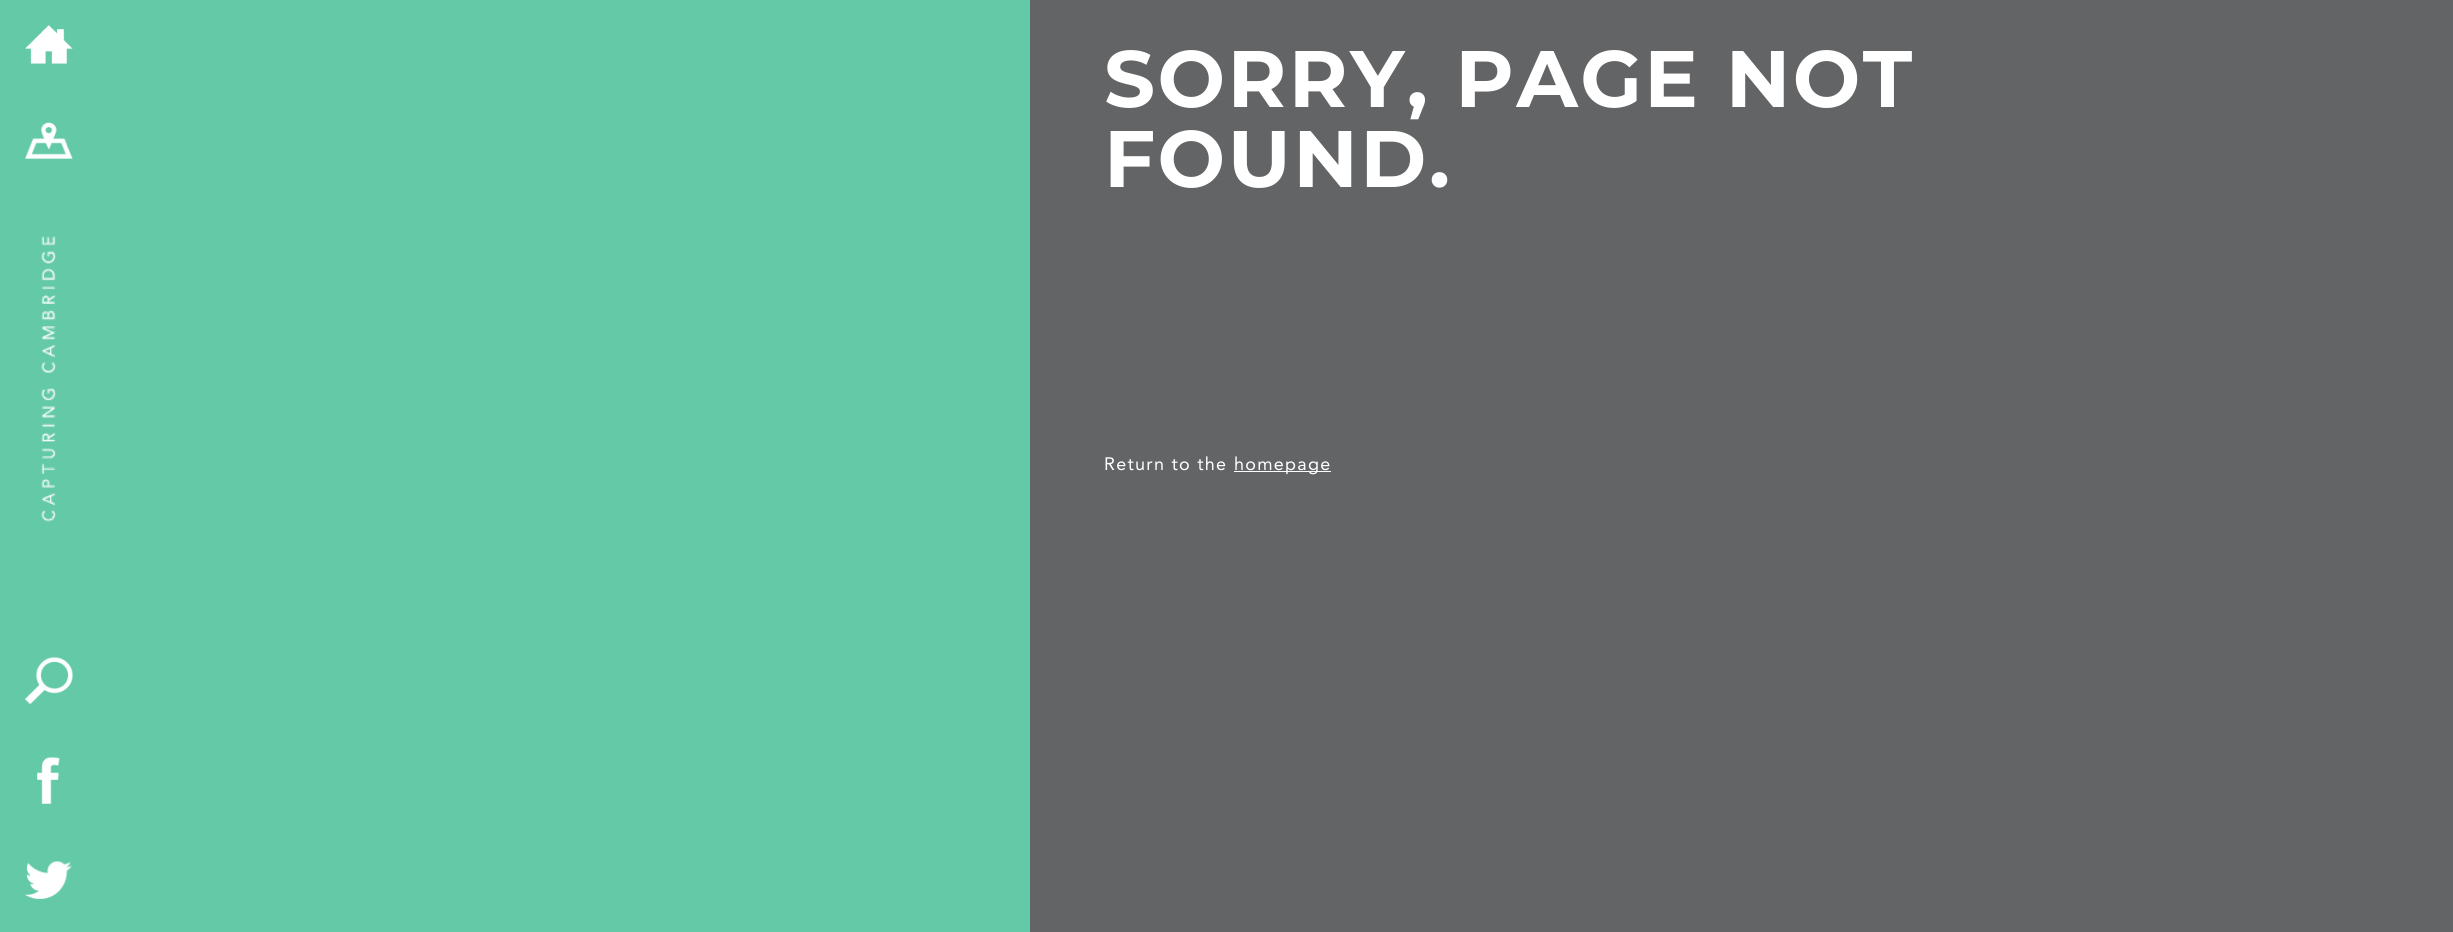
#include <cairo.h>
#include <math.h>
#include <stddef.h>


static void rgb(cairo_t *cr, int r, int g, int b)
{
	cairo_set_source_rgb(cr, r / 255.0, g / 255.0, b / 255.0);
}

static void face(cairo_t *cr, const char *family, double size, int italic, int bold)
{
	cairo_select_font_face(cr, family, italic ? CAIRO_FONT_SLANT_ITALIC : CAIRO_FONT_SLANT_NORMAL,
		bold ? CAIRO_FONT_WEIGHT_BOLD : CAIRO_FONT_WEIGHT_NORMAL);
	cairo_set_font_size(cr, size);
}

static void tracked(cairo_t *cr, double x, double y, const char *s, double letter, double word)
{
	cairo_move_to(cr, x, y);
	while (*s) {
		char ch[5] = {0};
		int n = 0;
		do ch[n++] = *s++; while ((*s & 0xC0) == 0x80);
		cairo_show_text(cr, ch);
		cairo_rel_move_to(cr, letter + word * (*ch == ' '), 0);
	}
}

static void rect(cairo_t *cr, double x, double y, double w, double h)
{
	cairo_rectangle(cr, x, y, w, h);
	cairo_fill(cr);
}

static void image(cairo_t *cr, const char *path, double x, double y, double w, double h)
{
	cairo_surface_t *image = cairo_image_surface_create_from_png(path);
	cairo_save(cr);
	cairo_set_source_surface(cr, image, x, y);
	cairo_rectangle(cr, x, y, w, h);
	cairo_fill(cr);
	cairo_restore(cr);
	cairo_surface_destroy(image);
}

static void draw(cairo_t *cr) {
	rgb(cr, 99, 201, 166);
	cairo_paint(cr);
	image(cr, "image0.png", 25, 25, 48, 39);
	image(cr, "image1.png", 25, 122, 48, 37);
	image(cr, "image2.png", 41, 236, 15, 286);
	image(cr, "image3.png", 25, 657, 48, 48);
	image(cr, "image4.png", 37, 757, 23, 47);
	image(cr, "image5.png", 25, 861, 47, 38);
	rgb(cr, 99, 100, 102);
	rect(cr, 1030, 0, 1423, 932);
	face(cr, "Montserrat", 80, 0, 1);
	rgb(cr, 255, 255, 255);
	tracked(cr, 1104, 107, "SORRY, PAGE NOT", 2.5, 0);
	tracked(cr, 1104, 187, "FOUND.", 2.5, 0);
	face(cr, "Avenir", 18, 0, 0);
	tracked(cr, 1104, 470, "Return to the", 1.25, 0);
	rect(cr, 1234, 471, 97, 1);
	tracked(cr, 1234, 470, "homepage", 1.25, 0);
}

int main(void) {
	cairo_surface_t *surface = cairo_image_surface_create(CAIRO_FORMAT_RGB24, 2453, 932);
	cairo_t *cr = cairo_create(surface);
	cairo_font_options_t *options = cairo_font_options_create();
	cairo_font_options_set_hint_metrics(options, CAIRO_HINT_METRICS_OFF);
	cairo_font_options_set_hint_style(options, CAIRO_HINT_STYLE_NONE);
	cairo_set_font_options(cr, options);
	cairo_set_miter_limit(cr, 4);
	draw(cr);
	cairo_surface_write_to_png(surface, "render.png");
	cairo_font_options_destroy(options);
	cairo_destroy(cr);
	cairo_surface_destroy(surface);
	return 0;
}
